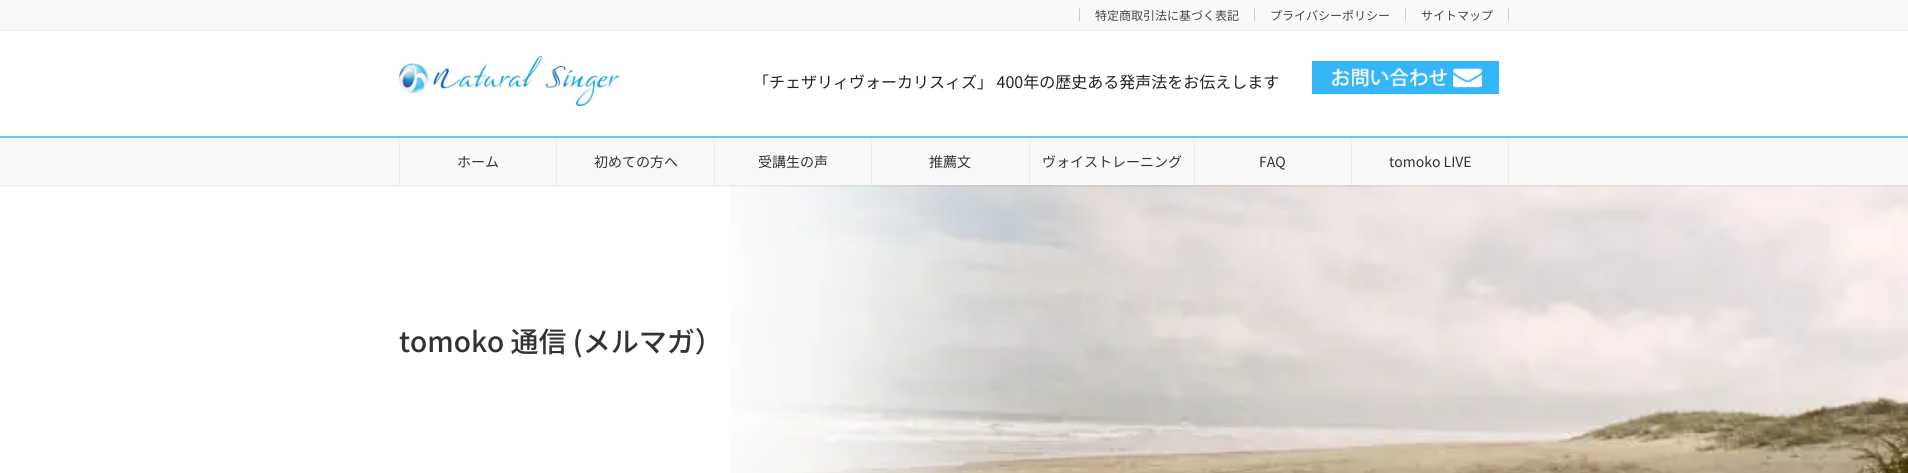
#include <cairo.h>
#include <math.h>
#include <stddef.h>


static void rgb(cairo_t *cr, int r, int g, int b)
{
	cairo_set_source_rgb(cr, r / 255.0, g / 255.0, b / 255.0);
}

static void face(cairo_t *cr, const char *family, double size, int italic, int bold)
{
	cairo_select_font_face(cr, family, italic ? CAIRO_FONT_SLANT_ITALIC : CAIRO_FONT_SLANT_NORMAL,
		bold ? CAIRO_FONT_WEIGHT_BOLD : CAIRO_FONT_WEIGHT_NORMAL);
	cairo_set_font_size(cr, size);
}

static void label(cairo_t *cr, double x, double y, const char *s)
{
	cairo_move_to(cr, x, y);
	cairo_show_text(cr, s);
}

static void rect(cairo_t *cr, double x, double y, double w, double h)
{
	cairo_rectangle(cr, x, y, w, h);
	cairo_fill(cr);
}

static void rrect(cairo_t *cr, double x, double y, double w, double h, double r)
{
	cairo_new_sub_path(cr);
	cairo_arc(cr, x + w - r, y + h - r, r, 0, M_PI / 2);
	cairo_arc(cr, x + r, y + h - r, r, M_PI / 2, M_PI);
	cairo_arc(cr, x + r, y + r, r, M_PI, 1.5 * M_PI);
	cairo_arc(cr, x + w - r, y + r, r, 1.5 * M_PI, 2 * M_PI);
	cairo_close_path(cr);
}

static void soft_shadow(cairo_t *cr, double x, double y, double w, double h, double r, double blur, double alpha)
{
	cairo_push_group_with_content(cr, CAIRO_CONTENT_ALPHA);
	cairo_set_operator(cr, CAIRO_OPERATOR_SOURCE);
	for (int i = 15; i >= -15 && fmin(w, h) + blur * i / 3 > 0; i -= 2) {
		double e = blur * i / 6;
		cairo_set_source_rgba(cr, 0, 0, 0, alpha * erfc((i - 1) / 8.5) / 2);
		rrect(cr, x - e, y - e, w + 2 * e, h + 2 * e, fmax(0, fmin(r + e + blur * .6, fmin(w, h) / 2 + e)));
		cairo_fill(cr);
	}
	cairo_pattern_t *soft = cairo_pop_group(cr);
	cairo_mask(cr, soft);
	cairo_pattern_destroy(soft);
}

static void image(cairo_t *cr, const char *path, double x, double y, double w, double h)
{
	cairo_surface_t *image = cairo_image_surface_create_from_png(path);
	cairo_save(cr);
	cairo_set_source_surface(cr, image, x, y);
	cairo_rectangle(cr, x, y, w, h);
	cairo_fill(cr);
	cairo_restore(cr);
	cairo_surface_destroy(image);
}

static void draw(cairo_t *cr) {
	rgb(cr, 255, 255, 255);
	cairo_paint(cr);
	image(cr, "image2.png", 730, 185, 1178, 288);
	cairo_save(cr);
	cairo_rectangle(cr, 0, 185, 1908, 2);
	cairo_clip(cr);
	rgb(cr, 0, 0, 0);
	soft_shadow(cr, 0, -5, 1908, 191, 0, 1.5, 0.1);
	cairo_restore(cr);
	rgb(cr, 249, 249, 249);
	rect(cr, 0, 0, 1908, 30);
	rgb(cr, 239, 239, 239);
	rect(cr, 0, 30, 1908, 1);
	rgb(cr, 204, 204, 204);
	rect(cr, 1254, 8, 1, 13);
	rect(cr, 1079, 8, 1, 13);
	face(cr, "Noto Sans JP", 12, 0, 0);
	rgb(cr, 70, 70, 70);
	label(cr, 1095, 20, "特定商取引法に基づく表記");
	rgb(cr, 204, 204, 204);
	rect(cr, 1405, 8, 1, 13);
	rgb(cr, 70, 70, 70);
	label(cr, 1270, 20, "プライバシーポリシー");
	rgb(cr, 204, 204, 204);
	rect(cr, 1508, 8, 1, 13);
	rgb(cr, 70, 70, 70);
	label(cr, 1421, 20, "サイトマップ");
	image(cr, "image0.png", 399, 56, 220, 50);
	face(cr, "Noto Sans JP", 16, 0, 0);
	rgb(cr, 33, 37, 41);
	label(cr, 753, 88, "「チェザリィヴォーカリスィズ」 400年の歴史ある発声法をお伝えします");
	image(cr, "image1.png", 1312, 61, 187, 33);
	rgb(cr, 249, 249, 249);
	rect(cr, 0, 138, 1908, 47);
	rgb(cr, 106, 201, 243);
	rect(cr, 0, 136, 1908, 2);
	rgb(cr, 237, 237, 237);
	rect(cr, 399, 138, 1, 47);
	face(cr, "Noto Sans JP", 14, 0, 0);
	rgb(cr, 51, 51, 51);
	label(cr, 457, 167, "ホーム");
	rgb(cr, 237, 237, 237);
	rect(cr, 556, 138, 1, 47);
	rgb(cr, 51, 51, 51);
	label(cr, 594, 167, "初めての方へ");
	rgb(cr, 237, 237, 237);
	rect(cr, 714, 138, 1, 47);
	rgb(cr, 51, 51, 51);
	label(cr, 758, 167, "受講生の声");
	rgb(cr, 237, 237, 237);
	rect(cr, 871, 138, 1, 47);
	rgb(cr, 51, 51, 51);
	label(cr, 929, 167, "推薦文");
	rgb(cr, 237, 237, 237);
	rect(cr, 1029, 138, 1, 47);
	rgb(cr, 51, 51, 51);
	label(cr, 1042, 167, "ヴォイストレーニング");
	rgb(cr, 237, 237, 237);
	rect(cr, 1194, 138, 1, 47);
	rgb(cr, 51, 51, 51);
	label(cr, 1259, 167, "FAQ");
	rgb(cr, 237, 237, 237);
	rect(cr, 1508, 138, 1, 47);
	rect(cr, 1351, 138, 1, 47);
	rgb(cr, 51, 51, 51);
	label(cr, 1389, 167, "tomoko LIVE");
	face(cr, "Noto Sans JP Medium", 28, 0, 0);
	label(cr, 399, 352, "tomoko 通信 (メルマガ）");
}

int main(void) {
	cairo_surface_t *surface = cairo_image_surface_create(CAIRO_FORMAT_RGB24, 1908, 473);
	cairo_t *cr = cairo_create(surface);
	cairo_font_options_t *options = cairo_font_options_create();
	cairo_font_options_set_hint_metrics(options, CAIRO_HINT_METRICS_OFF);
	cairo_font_options_set_hint_style(options, CAIRO_HINT_STYLE_NONE);
	cairo_set_font_options(cr, options);
	cairo_set_miter_limit(cr, 4);
	draw(cr);
	cairo_surface_write_to_png(surface, "render.png");
	cairo_font_options_destroy(options);
	cairo_destroy(cr);
	cairo_surface_destroy(surface);
	return 0;
}
